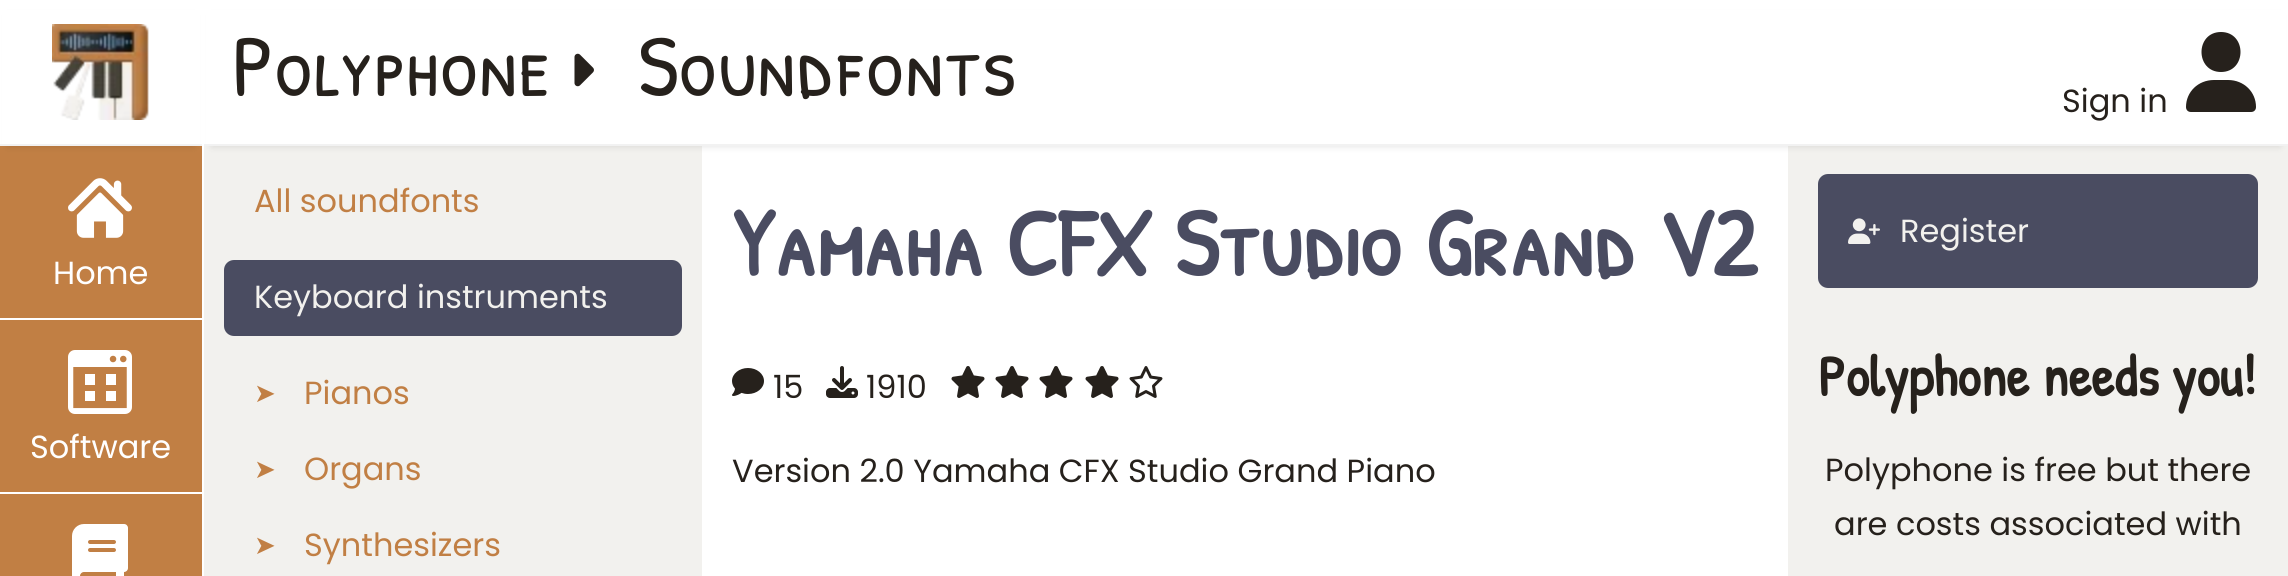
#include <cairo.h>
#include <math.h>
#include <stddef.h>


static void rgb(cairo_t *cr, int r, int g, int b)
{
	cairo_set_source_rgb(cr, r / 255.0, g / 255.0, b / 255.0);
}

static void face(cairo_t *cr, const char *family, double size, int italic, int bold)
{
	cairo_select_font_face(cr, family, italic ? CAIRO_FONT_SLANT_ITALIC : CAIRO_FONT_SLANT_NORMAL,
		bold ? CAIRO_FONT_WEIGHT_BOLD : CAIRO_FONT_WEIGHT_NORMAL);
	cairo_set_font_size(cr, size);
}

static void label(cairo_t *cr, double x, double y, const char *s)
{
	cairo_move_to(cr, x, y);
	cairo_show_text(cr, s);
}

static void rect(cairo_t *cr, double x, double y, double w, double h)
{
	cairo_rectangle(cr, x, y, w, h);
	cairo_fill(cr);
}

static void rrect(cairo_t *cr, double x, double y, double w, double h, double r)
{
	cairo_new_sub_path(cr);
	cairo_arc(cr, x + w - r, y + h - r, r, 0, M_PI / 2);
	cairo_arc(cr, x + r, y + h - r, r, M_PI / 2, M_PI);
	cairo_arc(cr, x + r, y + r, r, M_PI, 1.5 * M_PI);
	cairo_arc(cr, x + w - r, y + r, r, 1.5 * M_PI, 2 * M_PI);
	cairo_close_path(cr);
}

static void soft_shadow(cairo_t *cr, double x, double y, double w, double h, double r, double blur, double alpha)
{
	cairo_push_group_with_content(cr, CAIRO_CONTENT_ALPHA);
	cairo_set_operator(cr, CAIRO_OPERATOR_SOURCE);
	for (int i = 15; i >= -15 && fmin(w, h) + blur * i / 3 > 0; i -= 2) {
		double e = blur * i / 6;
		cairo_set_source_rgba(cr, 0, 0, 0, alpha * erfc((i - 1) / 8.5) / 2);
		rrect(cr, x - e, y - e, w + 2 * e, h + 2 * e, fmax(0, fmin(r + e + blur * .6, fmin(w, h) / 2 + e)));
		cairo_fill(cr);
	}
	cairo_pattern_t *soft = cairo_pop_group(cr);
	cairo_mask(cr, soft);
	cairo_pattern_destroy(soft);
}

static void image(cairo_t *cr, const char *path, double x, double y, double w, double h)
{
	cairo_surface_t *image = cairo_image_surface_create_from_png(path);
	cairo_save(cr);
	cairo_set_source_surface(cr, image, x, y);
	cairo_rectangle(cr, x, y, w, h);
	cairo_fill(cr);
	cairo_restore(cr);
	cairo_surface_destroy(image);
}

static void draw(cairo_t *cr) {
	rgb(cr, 255, 255, 255);
	cairo_paint(cr);
	rgb(cr, 193, 127, 68);
	rect(cr, 0, 146, 202, 430);
	rgb(cr, 242, 241, 238);
	rect(cr, 204, 146, 498, 430);
	rgb(cr, 0, 0, 0);
	soft_shadow(cr, 8, 16, 186, 130, 0, 4, 0.12);
	rgb(cr, 255, 255, 255);
	rect(cr, 2, 10, 198, 134);
	rgb(cr, 242, 242, 242);
	rect(cr, 0, 144, 202, 2);
	image(cr, "image0.png", 52, 24, 97, 96);
	rgb(cr, 255, 255, 255);
	rect(cr, 0, 318, 202, 2);
	image(cr, "image1.png", 68, 178, 64, 60);
	face(cr, "Poppins", 32, 0, 0);
	label(cr, 53, 284, "Home");
	rect(cr, 0, 492, 202, 2);
	image(cr, "image2.png", 68, 350, 64, 64);
	label(cr, 30, 458, "Software");
	image(cr, "image3.png", 72, 524, 56, 52);
	rgb(cr, 242, 241, 238);
	rect(cr, 1788, 146, 500, 430);
	rgb(cr, 0, 0, 0);
	soft_shadow(cr, 212, 16, 2068, 130, 0, 4, 0.12);
	rgb(cr, 255, 255, 255);
	rect(cr, 206, 10, 2080, 134);
	rgb(cr, 242, 242, 242);
	rect(cr, 204, 144, 2084, 2);
	face(cr, "Patrick Hand SC", 88, 0, 0);
	rgb(cr, 38, 33, 28);
	label(cr, 232, 96, "Polyphone");
	image(cr, "image4.png", 574, 53, 20, 34);
	label(cr, 638, 96, "Soundfonts");
	face(cr, "Poppins", 32, 0, 0);
	label(cr, 2062, 112, "Sign in");
	cairo_new_path(cr);
	cairo_move_to(cr, 2221, 72);
	cairo_curve_to(cr, 2247, 72, 2247, 32, 2221, 32);
	cairo_curve_to(cr, 2195, 32, 2195, 72, 2221, 72);
	cairo_close_path(cr);
	cairo_move_to(cr, 2214, 80);
	cairo_curve_to(cr, 2198, 80, 2186, 92, 2186, 107);
	cairo_curve_to(cr, 2186, 110, 2188, 112, 2191, 112);
	cairo_line_to(cr, 2251, 112);
	cairo_curve_to(cr, 2254, 112, 2256, 110, 2256, 107);
	cairo_curve_to(cr, 2256, 92, 2244, 80, 2228, 80);
	cairo_close_path(cr);
	cairo_fill(cr);
	rgb(cr, 193, 127, 68);
	label(cr, 254, 212, "All soundfonts");
	rgb(cr, 74, 76, 97);
	rrect(cr, 224, 260, 458, 76, 10);
	cairo_fill(cr);
	rgb(cr, 242, 241, 238);
	label(cr, 254, 308, "Keyboard instruments");
	face(cr, "DejaVu Sans", 26, 0, 0);
	rgb(cr, 193, 127, 68);
	label(cr, 254, 402, "➤");
	face(cr, "Poppins", 32, 0, 0);
	label(cr, 304, 404, "Pianos");
	face(cr, "DejaVu Sans", 26, 0, 0);
	label(cr, 254, 478, "➤");
	face(cr, "Poppins", 32, 0, 0);
	label(cr, 304, 480, "Organs");
	face(cr, "DejaVu Sans", 26, 0, 0);
	label(cr, 254, 554, "➤");
	face(cr, "Poppins", 32, 0, 0);
	label(cr, 304, 556, "Synthesizers");
	face(cr, "Patrick Hand SC", 96, 0, 1);
	rgb(cr, 74, 76, 97);
	label(cr, 732, 276, "Yamaha CFX Studio Grand V2");
	image(cr, "image5.png", 732, 368, 32, 28);
	face(cr, "Poppins", 32, 0, 0);
	rgb(cr, 38, 33, 28);
	label(cr, 773, 398, "15");
	image(cr, "image6.png", 826, 366, 32, 32);
	label(cr, 866, 398, "1910");
	image(cr, "image7.png", 951, 366, 34, 32);
	image(cr, "image7.png", 995, 366, 34, 32);
	image(cr, "image7.png", 1039, 366, 34, 32);
	image(cr, "image7.png", 1085, 366, 34, 32);
	image(cr, "image8.png", 1129, 366, 34, 32);
	label(cr, 732, 482, "Version 2.0 Yamaha CFX Studio Grand Piano");
	rgb(cr, 74, 76, 97);
	rrect(cr, 1818, 174, 440, 114, 10);
	cairo_fill(cr);
	image(cr, "image9.png", 1848, 218, 32, 26);
	rgb(cr, 242, 241, 238);
	label(cr, 1900, 242, "Register");
	face(cr, "Patrick Hand", 57.5, 0, 1);
	rgb(cr, 38, 33, 28);
	label(cr, 1818, 396, "Polyphone needs you!");
	face(cr, "Poppins", 32, 0, 0);
	label(cr, 1825, 481, "Polyphone is free but there");
	label(cr, 1834, 535, "are costs associated with");
}

int main(void) {
	cairo_surface_t *surface = cairo_image_surface_create(CAIRO_FORMAT_RGB24, 2288, 576);
	cairo_t *cr = cairo_create(surface);
	cairo_font_options_t *options = cairo_font_options_create();
	cairo_font_options_set_hint_metrics(options, CAIRO_HINT_METRICS_OFF);
	cairo_font_options_set_hint_style(options, CAIRO_HINT_STYLE_NONE);
	cairo_set_font_options(cr, options);
	cairo_set_miter_limit(cr, 4);
	draw(cr);
	cairo_surface_write_to_png(surface, "render.png");
	cairo_font_options_destroy(options);
	cairo_destroy(cr);
	cairo_surface_destroy(surface);
	return 0;
}
